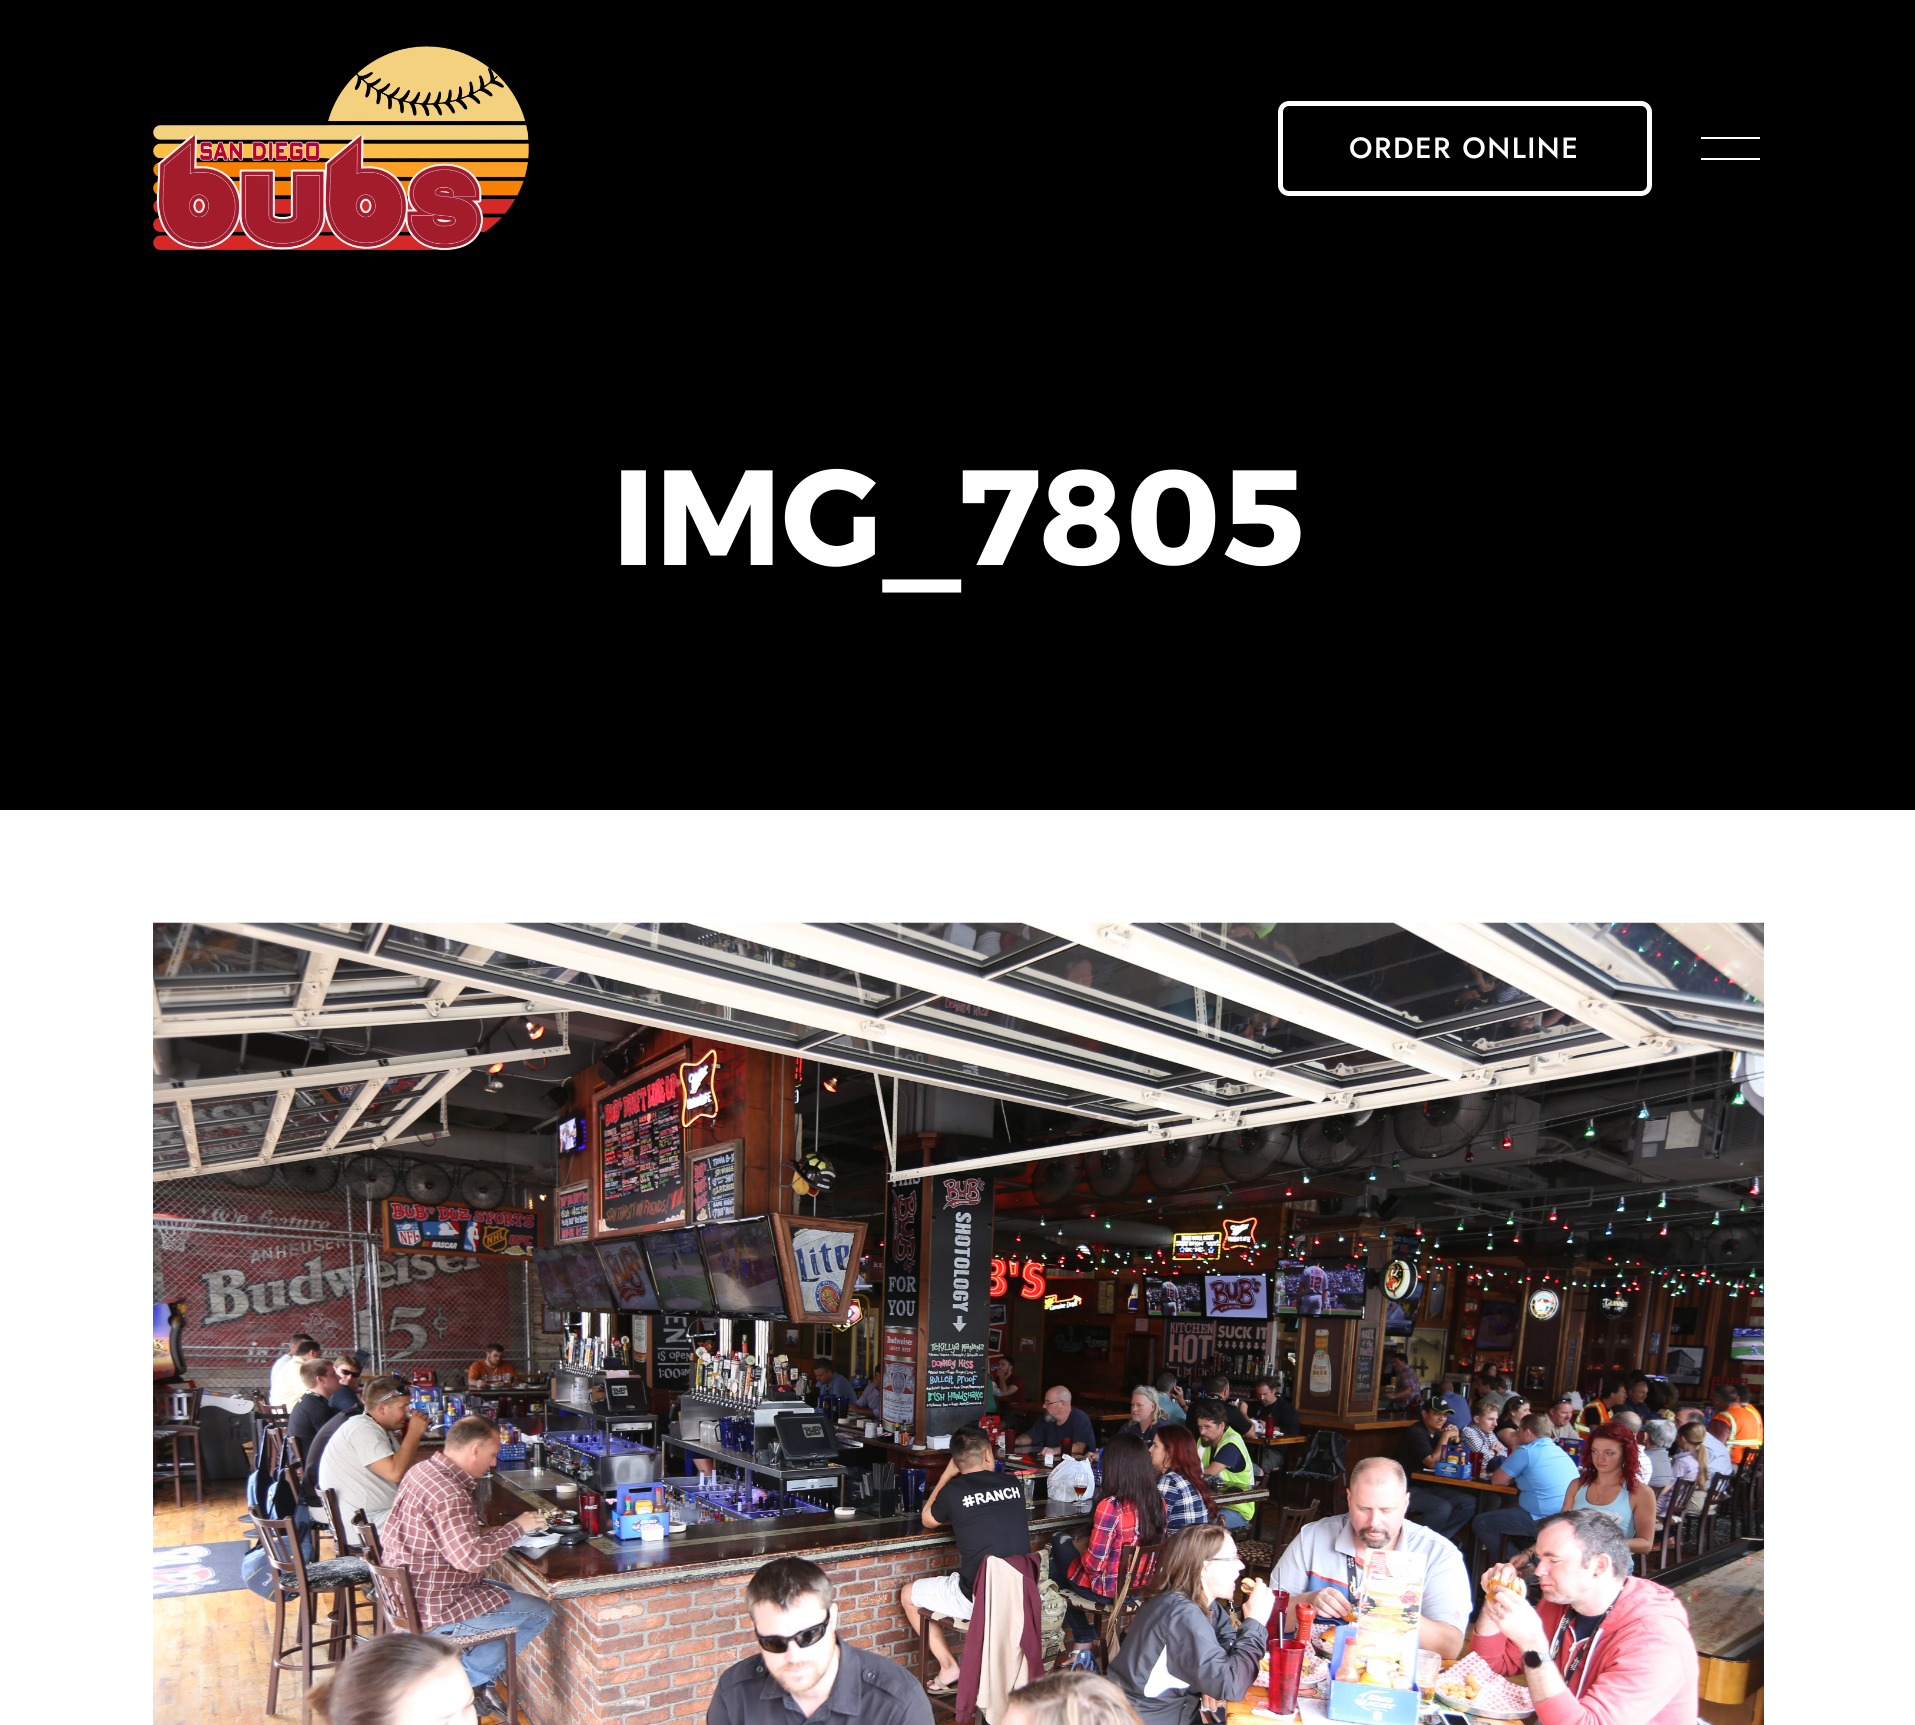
#include <cairo.h>
#include <math.h>
#include <stddef.h>


static void rgb(cairo_t *cr, int r, int g, int b)
{
	cairo_set_source_rgb(cr, r / 255.0, g / 255.0, b / 255.0);
}

static void face(cairo_t *cr, const char *family, double size, int italic, int bold)
{
	cairo_select_font_face(cr, family, italic ? CAIRO_FONT_SLANT_ITALIC : CAIRO_FONT_SLANT_NORMAL,
		bold ? CAIRO_FONT_WEIGHT_BOLD : CAIRO_FONT_WEIGHT_NORMAL);
	cairo_set_font_size(cr, size);
}

static void label(cairo_t *cr, double x, double y, const char *s)
{
	cairo_move_to(cr, x, y);
	cairo_show_text(cr, s);
}

static void tracked(cairo_t *cr, double x, double y, const char *s, double letter, double word)
{
	cairo_move_to(cr, x, y);
	while (*s) {
		char ch[5] = {0};
		int n = 0;
		do ch[n++] = *s++; while ((*s & 0xC0) == 0x80);
		cairo_show_text(cr, ch);
		cairo_rel_move_to(cr, letter + word * (*ch == ' '), 0);
	}
}

static void rect(cairo_t *cr, double x, double y, double w, double h)
{
	cairo_rectangle(cr, x, y, w, h);
	cairo_fill(cr);
}

static void rrect(cairo_t *cr, double x, double y, double w, double h, double r)
{
	cairo_new_sub_path(cr);
	cairo_arc(cr, x + w - r, y + h - r, r, 0, M_PI / 2);
	cairo_arc(cr, x + r, y + h - r, r, M_PI / 2, M_PI);
	cairo_arc(cr, x + r, y + r, r, M_PI, 1.5 * M_PI);
	cairo_arc(cr, x + w - r, y + r, r, 1.5 * M_PI, 2 * M_PI);
	cairo_close_path(cr);
}

static void image(cairo_t *cr, const char *path, double x, double y, double w, double h)
{
	cairo_surface_t *image = cairo_image_surface_create_from_png(path);
	cairo_save(cr);
	cairo_set_source_surface(cr, image, x, y);
	cairo_rectangle(cr, x, y, w, h);
	cairo_fill(cr);
	cairo_restore(cr);
	cairo_surface_destroy(image);
}

static void draw(cairo_t *cr) {
	rgb(cr, 255, 255, 255);
	cairo_paint(cr);
	rgb(cr, 0, 0, 0);
	rect(cr, 0, 0, 1915, 810);
	image(cr, "image0.png", 153, 46, 376, 205);
	rrect(cr, 1280.5, 103.5, 369, 90, 8.5);
	rgb(cr, 255, 255, 255);
	cairo_set_line_width(cr, 5);
	cairo_stroke(cr);
	face(cr, "Jost Medium", 29.25, 0, 0);
	tracked(cr, 1349, 158, "ORDER ONLINE", 1.5, 0);
	rect(cr, 1701, 137, 59, 2);
	rect(cr, 1701, 158, 59, 2);
	face(cr, "Alexandria", 135, 0, 1);
	label(cr, 612, 565, "IMG_7805");
	image(cr, "image1.png", 153, 922, 1611, 803);
}

int main(void) {
	cairo_surface_t *surface = cairo_image_surface_create(CAIRO_FORMAT_RGB24, 1915, 1725);
	cairo_t *cr = cairo_create(surface);
	cairo_font_options_t *options = cairo_font_options_create();
	cairo_font_options_set_hint_metrics(options, CAIRO_HINT_METRICS_OFF);
	cairo_font_options_set_hint_style(options, CAIRO_HINT_STYLE_NONE);
	cairo_set_font_options(cr, options);
	cairo_set_miter_limit(cr, 4);
	draw(cr);
	cairo_surface_write_to_png(surface, "render.png");
	cairo_font_options_destroy(options);
	cairo_destroy(cr);
	cairo_surface_destroy(surface);
	return 0;
}
